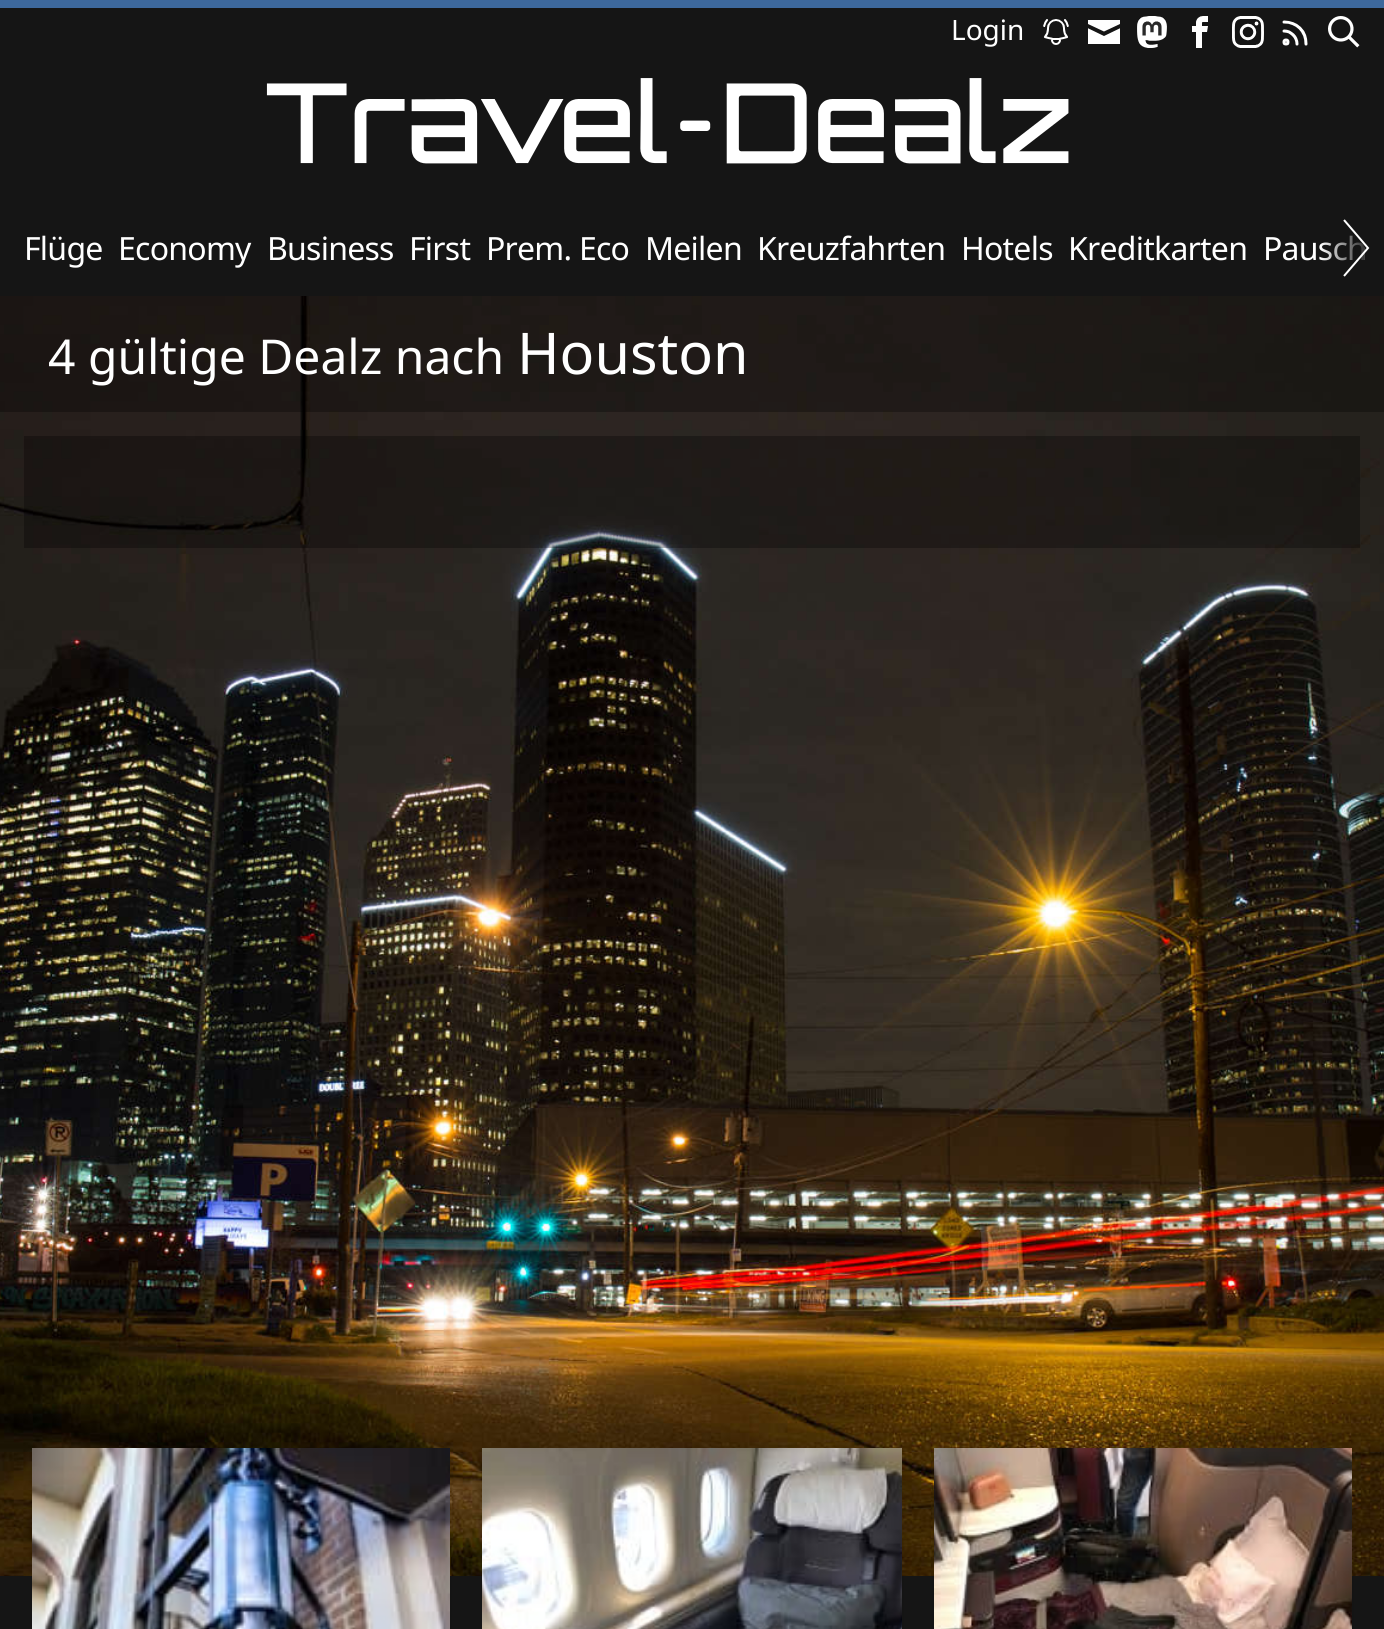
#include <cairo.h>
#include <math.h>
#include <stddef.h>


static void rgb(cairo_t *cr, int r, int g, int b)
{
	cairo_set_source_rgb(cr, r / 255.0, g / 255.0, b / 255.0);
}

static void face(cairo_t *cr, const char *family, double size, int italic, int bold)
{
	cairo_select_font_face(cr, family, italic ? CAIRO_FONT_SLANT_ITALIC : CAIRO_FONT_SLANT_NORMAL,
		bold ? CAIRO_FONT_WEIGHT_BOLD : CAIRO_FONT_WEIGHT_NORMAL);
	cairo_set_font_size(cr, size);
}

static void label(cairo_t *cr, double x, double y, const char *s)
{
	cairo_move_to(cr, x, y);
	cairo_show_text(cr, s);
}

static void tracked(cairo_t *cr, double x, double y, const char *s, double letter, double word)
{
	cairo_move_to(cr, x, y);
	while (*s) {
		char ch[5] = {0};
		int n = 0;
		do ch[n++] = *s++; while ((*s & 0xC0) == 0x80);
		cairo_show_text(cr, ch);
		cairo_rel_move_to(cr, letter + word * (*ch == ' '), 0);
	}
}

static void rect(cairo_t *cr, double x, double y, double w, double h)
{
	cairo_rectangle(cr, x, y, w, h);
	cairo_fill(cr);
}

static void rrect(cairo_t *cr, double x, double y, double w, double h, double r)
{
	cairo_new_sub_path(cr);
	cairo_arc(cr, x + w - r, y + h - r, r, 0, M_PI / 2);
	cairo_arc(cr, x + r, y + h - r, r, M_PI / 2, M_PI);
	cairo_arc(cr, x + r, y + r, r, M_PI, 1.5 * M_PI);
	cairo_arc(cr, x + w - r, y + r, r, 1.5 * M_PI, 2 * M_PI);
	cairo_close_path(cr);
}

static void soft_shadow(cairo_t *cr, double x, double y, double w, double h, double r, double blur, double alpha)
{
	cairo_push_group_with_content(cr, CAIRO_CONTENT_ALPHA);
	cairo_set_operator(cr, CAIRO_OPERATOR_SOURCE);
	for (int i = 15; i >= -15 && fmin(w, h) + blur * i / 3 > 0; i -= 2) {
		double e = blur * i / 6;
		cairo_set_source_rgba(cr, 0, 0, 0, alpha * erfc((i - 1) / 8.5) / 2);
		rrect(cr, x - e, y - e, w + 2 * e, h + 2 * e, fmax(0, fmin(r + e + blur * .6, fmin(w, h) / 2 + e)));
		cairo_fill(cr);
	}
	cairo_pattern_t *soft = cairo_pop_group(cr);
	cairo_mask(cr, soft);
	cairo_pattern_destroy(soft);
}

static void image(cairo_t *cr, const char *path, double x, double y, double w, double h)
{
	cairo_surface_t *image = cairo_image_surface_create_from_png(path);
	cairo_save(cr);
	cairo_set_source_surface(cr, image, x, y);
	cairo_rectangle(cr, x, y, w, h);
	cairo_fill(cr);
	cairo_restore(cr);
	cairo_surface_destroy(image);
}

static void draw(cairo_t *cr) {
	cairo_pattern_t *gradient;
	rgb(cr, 21, 21, 21);
	cairo_paint(cr);
	rgb(cr, 61, 104, 156);
	rect(cr, 0, 0, 1384, 8);
	face(cr, "Noto Sans", 28, 0, 0);
	rgb(cr, 255, 255, 255);
	label(cr, 951, 40, "Login");
	image(cr, "image0.png", 1043, 19, 26, 26);
	image(cr, "image1.png", 1088, 20, 32, 24);
	image(cr, "image2.png", 1137, 16, 30, 32);
	image(cr, "image3.png", 1192, 16, 16, 32);
	image(cr, "image4.png", 1232, 16, 32, 32);
	image(cr, "image5.png", 1282, 20, 26, 26);
	image(cr, "image6.png", 1328, 16, 32, 32);
	image(cr, "image7.png", 266, 78, 803, 86);
	face(cr, "Noto Sans", 32, 0, 0);
	tracked(cr, 24, 260, "Flüge", -0.75, 0);
	cairo_new_path(cr);
	cairo_move_to(cr, 40, 276);
	cairo_line_to(cr, 16, 248);
	cairo_line_to(cr, 40, 220);
	rgb(cr, 21, 21, 21);
	cairo_stroke(cr);
	rgb(cr, 255, 255, 255);
	tracked(cr, 1263, 260, "Pausch", -0.75, 0);
	gradient = cairo_pattern_create_linear(1320, 252, 1384, 252);
	cairo_pattern_add_color_stop_rgba(gradient, 0, 0.082, 0.082, 0.082, 0);
	cairo_pattern_add_color_stop_rgba(gradient, 0.8, 0.082, 0.082, 0.082, 1);
	cairo_pattern_add_color_stop_rgba(gradient, 1, 0.082, 0.082, 0.082, 1);
	cairo_set_source(cr, gradient);
	cairo_pattern_destroy(gradient);
	rect(cr, 1321, 235, 43, 26);
	cairo_new_path(cr);
	cairo_move_to(cr, 1344, 276);
	cairo_line_to(cr, 1368, 248);
	cairo_line_to(cr, 1344, 220);
	rgb(cr, 255, 255, 255);
	cairo_stroke(cr);
	tracked(cr, 118, 260, "Economy", -0.75, 0);
	tracked(cr, 267, 260, "Business", -0.75, 0);
	tracked(cr, 409, 260, "First", -0.75, 0);
	tracked(cr, 486, 260, "Prem. Eco", -0.75, 0);
	tracked(cr, 645, 260, "Meilen", -0.75, 0);
	tracked(cr, 757, 260, "Kreuzfahrten", -0.75, 0);
	tracked(cr, 961, 260, "Hotels", -0.75, 0);
	tracked(cr, 1068, 260, "Kreditkarten", -0.75, 0);
	image(cr, "image8.png", 0, 296, 1384, 1280);
	cairo_set_source_rgba(cr, 0, 0, 0, 0.3);
	rect(cr, 0, 296, 1384, 116);
	face(cr, "Noto Sans", 48, 0, 0);
	rgb(cr, 255, 255, 255);
	label(cr, 48, 374, "4 gültige Dealz nach");
	face(cr, "Noto Sans", 57.5, 0, 0);
	label(cr, 517, 374, "Houston");
	cairo_set_source_rgba(cr, 0, 0, 0, 0.3);
	rect(cr, 24, 436, 1336, 112);
	rgb(cr, 0, 0, 0);
	soft_shadow(cr, 32, 1450, 418, 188, 0, 3, 0.1);
	image(cr, "image9.png", 32, 1448, 418, 181);
	soft_shadow(cr, 482, 1450, 420, 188, 0, 3, 0.1);
	image(cr, "image10.png", 482, 1448, 420, 181);
	soft_shadow(cr, 934, 1450, 418, 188, 0, 3, 0.1);
	image(cr, "image11.png", 934, 1448, 418, 181);
}

int main(void) {
	cairo_surface_t *surface = cairo_image_surface_create(CAIRO_FORMAT_RGB24, 1384, 1629);
	cairo_t *cr = cairo_create(surface);
	cairo_font_options_t *options = cairo_font_options_create();
	cairo_font_options_set_hint_metrics(options, CAIRO_HINT_METRICS_OFF);
	cairo_font_options_set_hint_style(options, CAIRO_HINT_STYLE_NONE);
	cairo_set_font_options(cr, options);
	cairo_set_miter_limit(cr, 4);
	draw(cr);
	cairo_surface_write_to_png(surface, "render.png");
	cairo_font_options_destroy(options);
	cairo_destroy(cr);
	cairo_surface_destroy(surface);
	return 0;
}
